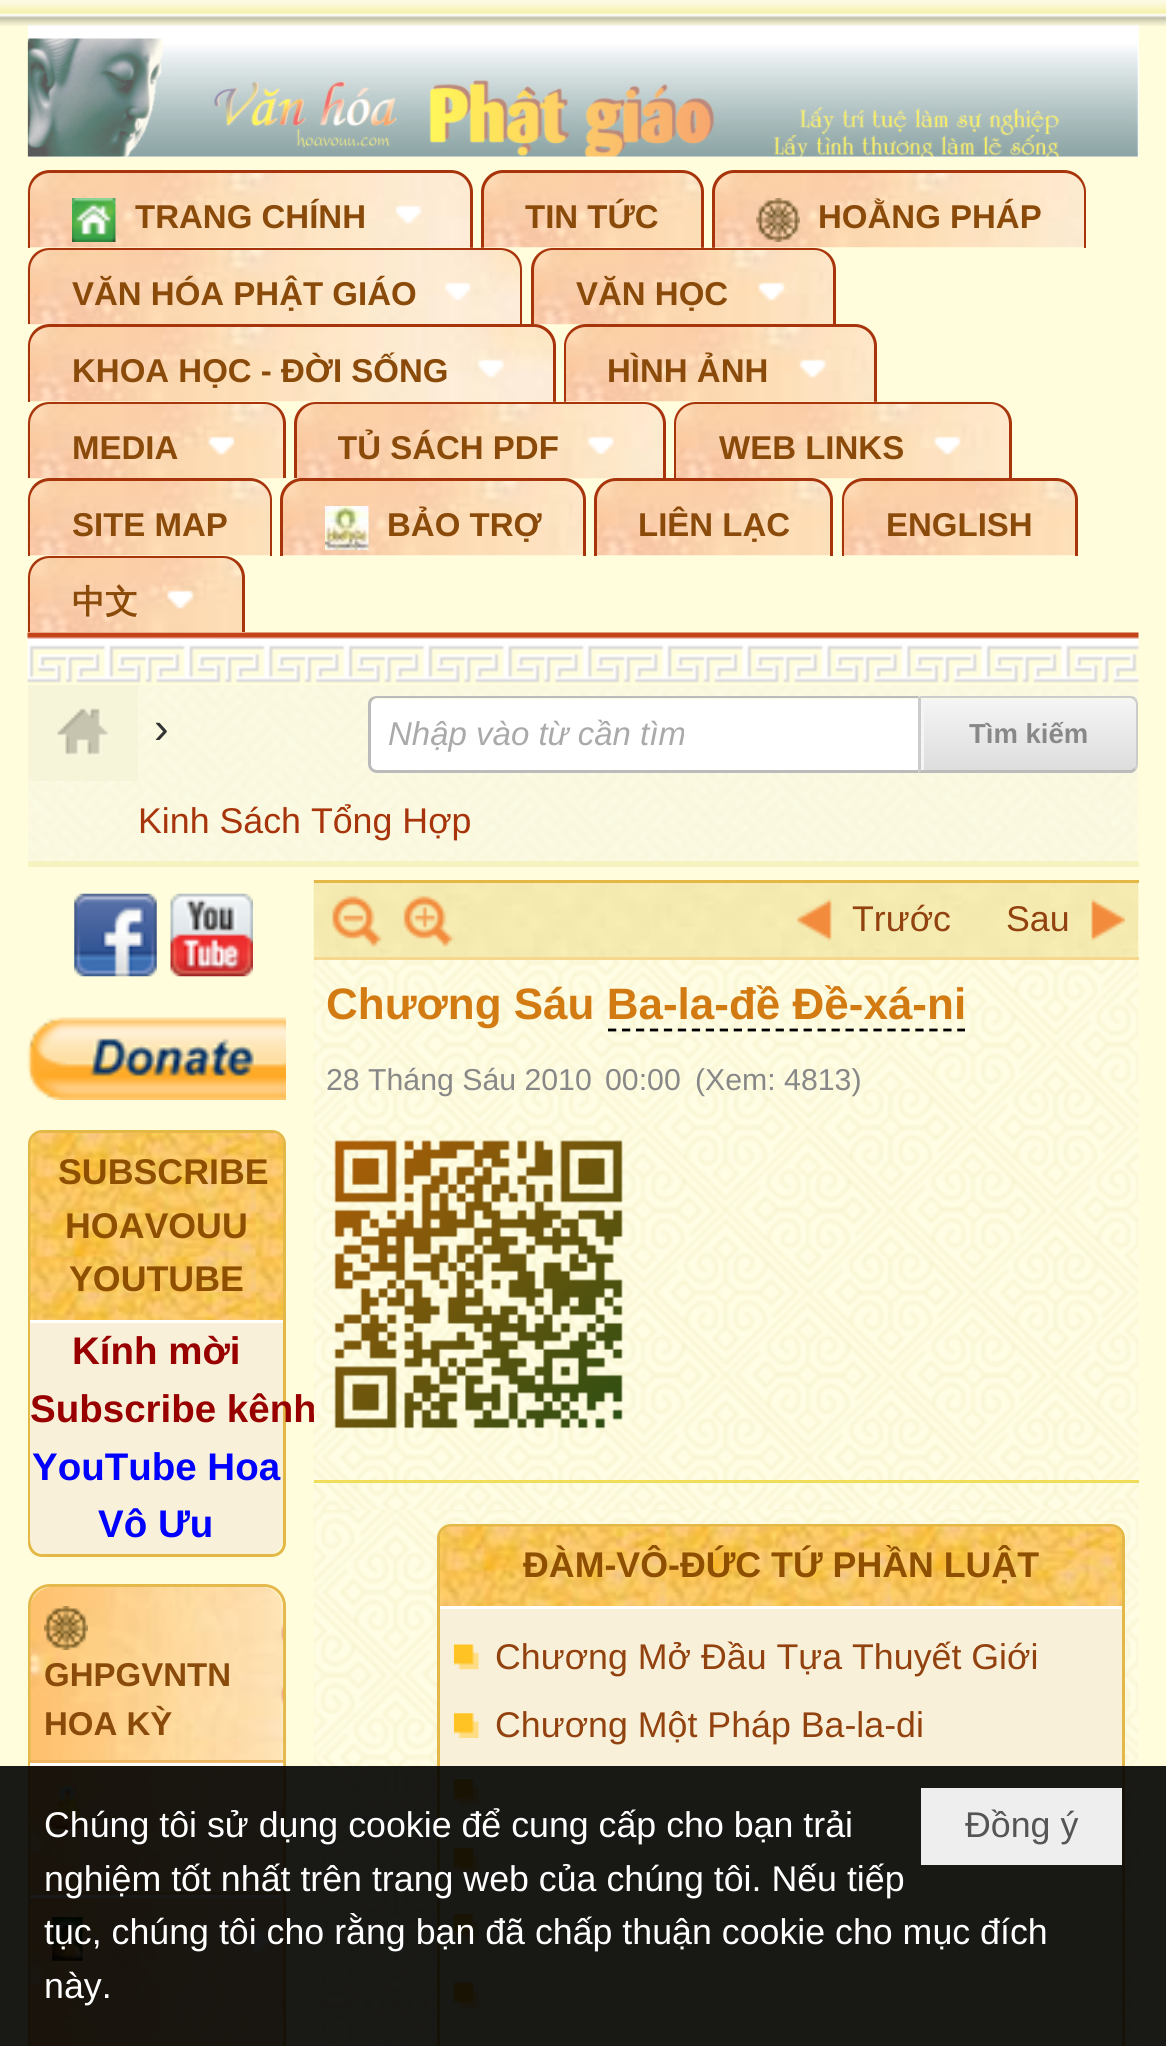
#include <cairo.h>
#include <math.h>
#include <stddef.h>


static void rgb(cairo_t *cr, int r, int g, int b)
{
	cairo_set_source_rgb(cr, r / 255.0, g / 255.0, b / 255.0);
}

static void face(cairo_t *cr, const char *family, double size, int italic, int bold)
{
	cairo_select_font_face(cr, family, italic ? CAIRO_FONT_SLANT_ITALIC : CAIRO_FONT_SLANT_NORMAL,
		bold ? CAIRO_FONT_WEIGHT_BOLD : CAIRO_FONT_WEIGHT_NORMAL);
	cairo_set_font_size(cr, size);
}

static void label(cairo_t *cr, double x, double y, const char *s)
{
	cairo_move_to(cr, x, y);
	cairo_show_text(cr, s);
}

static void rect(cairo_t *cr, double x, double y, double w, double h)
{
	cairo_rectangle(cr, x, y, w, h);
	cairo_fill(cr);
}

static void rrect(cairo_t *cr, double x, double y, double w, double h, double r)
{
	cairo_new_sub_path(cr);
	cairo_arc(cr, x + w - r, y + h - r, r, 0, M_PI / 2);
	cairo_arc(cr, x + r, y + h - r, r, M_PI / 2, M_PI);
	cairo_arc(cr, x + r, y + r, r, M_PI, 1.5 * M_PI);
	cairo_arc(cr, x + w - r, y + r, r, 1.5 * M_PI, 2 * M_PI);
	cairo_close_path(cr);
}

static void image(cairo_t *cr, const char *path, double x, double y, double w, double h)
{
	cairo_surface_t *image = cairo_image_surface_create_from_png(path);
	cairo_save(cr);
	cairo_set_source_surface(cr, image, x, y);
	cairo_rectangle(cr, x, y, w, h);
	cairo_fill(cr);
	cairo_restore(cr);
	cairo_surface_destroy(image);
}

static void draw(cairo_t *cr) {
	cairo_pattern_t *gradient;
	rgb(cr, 255, 253, 220);
	cairo_paint(cr);
	rgb(cr, 255, 255, 255);
	rect(cr, 28, 25, 1111, 132);
	image(cr, "image0.png", 0, 0, 1166, 26);
	image(cr, "image1.png", 27, 38, 1112, 119);
	image(cr, "image2.png", 27, 632, 1112, 51);
	image(cr, "image3.png", 27, 170, 446, 78);
	rgb(cr, 167, 52, 11);
	cairo_set_fill_rule(cr, CAIRO_FILL_RULE_EVEN_ODD);
	cairo_new_path(cr);
	cairo_move_to(cr, 50, 170);
	cairo_line_to(cr, 451, 170);
	cairo_curve_to(cr, 463, 170, 473, 180, 473, 192);
	cairo_line_to(cr, 473, 248);
	cairo_line_to(cr, 28, 248);
	cairo_line_to(cr, 28, 192);
	cairo_curve_to(cr, 28, 180, 37, 170, 50, 170);
	cairo_close_path(cr);
	cairo_move_to(cr, 50, 173);
	cairo_line_to(cr, 451, 173);
	cairo_curve_to(cr, 462, 173, 470, 182, 470, 192);
	cairo_line_to(cr, 470, 248);
	cairo_line_to(cr, 30, 248);
	cairo_line_to(cr, 30, 192);
	cairo_curve_to(cr, 30, 182, 39, 173, 50, 173);
	cairo_close_path(cr);
	cairo_fill(cr);
	image(cr, "image4.png", 72, 198, 44, 44);
	face(cr, "Liberation Sans", 33, 0, 1);
	rgb(cr, 138, 74, 10);
	label(cr, 135, 228, "TRANG CHÍNH");
	image(cr, "image5.png", 395, 205, 27, 19);
	image(cr, "image6.png", 481, 170, 223, 78);
	rgb(cr, 167, 52, 11);
	cairo_new_path(cr);
	cairo_move_to(cr, 503, 170);
	cairo_line_to(cr, 682, 170);
	cairo_curve_to(cr, 694, 170, 704, 180, 704, 192);
	cairo_line_to(cr, 704, 248);
	cairo_line_to(cr, 481, 248);
	cairo_line_to(cr, 481, 192);
	cairo_curve_to(cr, 481, 180, 491, 170, 503, 170);
	cairo_close_path(cr);
	cairo_move_to(cr, 503, 173);
	cairo_line_to(cr, 682, 173);
	cairo_curve_to(cr, 693, 173, 701, 182, 701, 192);
	cairo_line_to(cr, 701, 248);
	cairo_line_to(cr, 484, 248);
	cairo_line_to(cr, 484, 192);
	cairo_curve_to(cr, 484, 182, 493, 173, 503, 173);
	cairo_close_path(cr);
	cairo_fill(cr);
	rgb(cr, 138, 74, 10);
	label(cr, 525, 228, "TIN TỨC");
	image(cr, "image7.png", 712, 170, 374, 78);
	rgb(cr, 167, 52, 11);
	cairo_new_path(cr);
	cairo_move_to(cr, 734, 170);
	cairo_line_to(cr, 1064, 170);
	cairo_curve_to(cr, 1076, 170, 1086, 180, 1086, 192);
	cairo_line_to(cr, 1086, 248);
	cairo_line_to(cr, 712, 248);
	cairo_line_to(cr, 712, 192);
	cairo_curve_to(cr, 712, 180, 722, 170, 734, 170);
	cairo_close_path(cr);
	cairo_move_to(cr, 734, 173);
	cairo_line_to(cr, 1064, 173);
	cairo_curve_to(cr, 1075, 173, 1084, 182, 1084, 192);
	cairo_line_to(cr, 1084, 248);
	cairo_line_to(cr, 715, 248);
	cairo_line_to(cr, 715, 192);
	cairo_curve_to(cr, 715, 182, 724, 173, 734, 173);
	cairo_close_path(cr);
	cairo_fill(cr);
	image(cr, "image8.png", 756, 198, 44, 44);
	rgb(cr, 138, 74, 10);
	label(cr, 818, 228, "HOẰNG PHÁP");
	image(cr, "image9.png", 27, 247, 496, 78);
	rgb(cr, 167, 52, 11);
	cairo_new_path(cr);
	cairo_move_to(cr, 50, 248);
	cairo_line_to(cr, 500, 248);
	cairo_curve_to(cr, 513, 248, 522, 257, 522, 270);
	cairo_line_to(cr, 522, 324);
	cairo_line_to(cr, 28, 324);
	cairo_line_to(cr, 28, 270);
	cairo_curve_to(cr, 28, 257, 37, 248, 50, 248);
	cairo_close_path(cr);
	cairo_move_to(cr, 50, 250);
	cairo_line_to(cr, 500, 250);
	cairo_curve_to(cr, 511, 250, 520, 259, 520, 270);
	cairo_line_to(cr, 520, 324);
	cairo_line_to(cr, 30, 324);
	cairo_line_to(cr, 30, 270);
	cairo_curve_to(cr, 30, 259, 39, 250, 50, 250);
	cairo_close_path(cr);
	cairo_fill(cr);
	rgb(cr, 138, 74, 10);
	label(cr, 72, 305, "VĂN HÓA PHẬT GIÁO");
	image(cr, "image10.png", 444, 282, 27, 19);
	image(cr, "image11.png", 531, 247, 305, 78);
	rgb(cr, 167, 52, 11);
	cairo_new_path(cr);
	cairo_move_to(cr, 553, 248);
	cairo_line_to(cr, 814, 248);
	cairo_curve_to(cr, 826, 248, 836, 257, 836, 270);
	cairo_line_to(cr, 836, 324);
	cairo_line_to(cr, 531, 324);
	cairo_line_to(cr, 531, 270);
	cairo_curve_to(cr, 531, 257, 541, 248, 553, 248);
	cairo_close_path(cr);
	cairo_move_to(cr, 553, 250);
	cairo_line_to(cr, 814, 250);
	cairo_curve_to(cr, 825, 250, 833, 259, 833, 270);
	cairo_line_to(cr, 833, 324);
	cairo_line_to(cr, 534, 324);
	cairo_line_to(cr, 534, 270);
	cairo_curve_to(cr, 534, 259, 542, 250, 553, 250);
	cairo_close_path(cr);
	cairo_fill(cr);
	rgb(cr, 138, 74, 10);
	label(cr, 576, 305, "VĂN HỌC");
	image(cr, "image12.png", 758, 282, 27, 19);
	image(cr, "image13.png", 27, 324, 529, 78);
	rgb(cr, 167, 52, 11);
	cairo_new_path(cr);
	cairo_move_to(cr, 50, 324);
	cairo_line_to(cr, 534, 324);
	cairo_curve_to(cr, 546, 324, 556, 334, 556, 346);
	cairo_line_to(cr, 556, 402);
	cairo_line_to(cr, 28, 402);
	cairo_line_to(cr, 28, 346);
	cairo_curve_to(cr, 28, 334, 37, 324, 50, 324);
	cairo_close_path(cr);
	cairo_move_to(cr, 50, 327);
	cairo_line_to(cr, 534, 327);
	cairo_curve_to(cr, 544, 327, 553, 336, 553, 346);
	cairo_line_to(cr, 553, 402);
	cairo_line_to(cr, 30, 402);
	cairo_line_to(cr, 30, 346);
	cairo_curve_to(cr, 30, 336, 39, 327, 50, 327);
	cairo_close_path(cr);
	cairo_fill(cr);
	rgb(cr, 138, 74, 10);
	label(cr, 72, 382, "KHOA HỌC - ĐỜI SỐNG");
	image(cr, "image14.png", 477, 359, 27, 19);
	image(cr, "image15.png", 564, 324, 313, 78);
	rgb(cr, 167, 52, 11);
	cairo_new_path(cr);
	cairo_move_to(cr, 586, 324);
	cairo_line_to(cr, 855, 324);
	cairo_curve_to(cr, 867, 324, 877, 334, 877, 346);
	cairo_line_to(cr, 877, 402);
	cairo_line_to(cr, 564, 402);
	cairo_line_to(cr, 564, 346);
	cairo_curve_to(cr, 564, 334, 574, 324, 586, 324);
	cairo_close_path(cr);
	cairo_move_to(cr, 586, 327);
	cairo_line_to(cr, 855, 327);
	cairo_curve_to(cr, 866, 327, 874, 336, 874, 346);
	cairo_line_to(cr, 874, 402);
	cairo_line_to(cr, 566, 402);
	cairo_line_to(cr, 566, 346);
	cairo_curve_to(cr, 566, 336, 575, 327, 586, 327);
	cairo_close_path(cr);
	cairo_fill(cr);
	rgb(cr, 138, 74, 10);
	label(cr, 607, 382, "HÌNH ẢNH");
	image(cr, "image16.png", 799, 359, 27, 19);
	image(cr, "image17.png", 27, 401, 259, 78);
	rgb(cr, 167, 52, 11);
	cairo_new_path(cr);
	cairo_move_to(cr, 50, 402);
	cairo_line_to(cr, 264, 402);
	cairo_curve_to(cr, 276, 402, 286, 411, 286, 424);
	cairo_line_to(cr, 286, 478);
	cairo_line_to(cr, 28, 478);
	cairo_line_to(cr, 28, 424);
	cairo_curve_to(cr, 28, 411, 37, 402, 50, 402);
	cairo_close_path(cr);
	cairo_move_to(cr, 50, 404);
	cairo_line_to(cr, 264, 404);
	cairo_curve_to(cr, 275, 404, 283, 413, 283, 424);
	cairo_line_to(cr, 283, 478);
	cairo_line_to(cr, 30, 478);
	cairo_line_to(cr, 30, 424);
	cairo_curve_to(cr, 30, 413, 39, 404, 50, 404);
	cairo_close_path(cr);
	cairo_fill(cr);
	rgb(cr, 138, 74, 10);
	label(cr, 72, 459, "MEDIA");
	image(cr, "image18.png", 208, 436, 27, 19);
	image(cr, "image19.png", 294, 401, 372, 78);
	rgb(cr, 167, 52, 11);
	cairo_new_path(cr);
	cairo_move_to(cr, 316, 402);
	cairo_line_to(cr, 644, 402);
	cairo_curve_to(cr, 656, 402, 666, 411, 666, 424);
	cairo_line_to(cr, 666, 478);
	cairo_line_to(cr, 294, 478);
	cairo_line_to(cr, 294, 424);
	cairo_curve_to(cr, 294, 411, 304, 402, 316, 402);
	cairo_close_path(cr);
	cairo_move_to(cr, 316, 404);
	cairo_line_to(cr, 644, 404);
	cairo_curve_to(cr, 654, 404, 663, 413, 663, 424);
	cairo_line_to(cr, 663, 478);
	cairo_line_to(cr, 297, 478);
	cairo_line_to(cr, 297, 424);
	cairo_curve_to(cr, 297, 413, 306, 404, 316, 404);
	cairo_close_path(cr);
	cairo_fill(cr);
	cairo_save(cr);
	cairo_set_fill_rule(cr, CAIRO_FILL_RULE_WINDING);
	cairo_rectangle(cr, 338, 418, 220, 55);
	cairo_clip(cr);
	rgb(cr, 138, 74, 10);
	label(cr, 337, 459, "TỦ SÁCH PDF");
	cairo_restore(cr);
	image(cr, "image20.png", 587, 436, 27, 19);
	image(cr, "image21.png", 674, 401, 338, 78);
	cairo_new_path(cr);
	cairo_move_to(cr, 696, 402);
	cairo_line_to(cr, 990, 402);
	cairo_curve_to(cr, 1002, 402, 1012, 411, 1012, 424);
	cairo_line_to(cr, 1012, 478);
	cairo_line_to(cr, 674, 478);
	cairo_line_to(cr, 674, 424);
	cairo_curve_to(cr, 674, 411, 684, 402, 696, 402);
	cairo_close_path(cr);
	cairo_move_to(cr, 696, 404);
	cairo_line_to(cr, 990, 404);
	cairo_curve_to(cr, 1001, 404, 1009, 413, 1009, 424);
	cairo_line_to(cr, 1009, 478);
	cairo_line_to(cr, 676, 478);
	cairo_line_to(cr, 676, 424);
	cairo_curve_to(cr, 676, 413, 685, 404, 696, 404);
	cairo_close_path(cr);
	cairo_fill(cr);
	rgb(cr, 138, 74, 10);
	label(cr, 719, 459, "WEB LINKS");
	image(cr, "image22.png", 934, 436, 27, 19);
	image(cr, "image23.png", 27, 478, 245, 78);
	rgb(cr, 167, 52, 11);
	cairo_new_path(cr);
	cairo_move_to(cr, 50, 478);
	cairo_line_to(cr, 250, 478);
	cairo_curve_to(cr, 262, 478, 272, 488, 272, 500);
	cairo_line_to(cr, 272, 556);
	cairo_line_to(cr, 28, 556);
	cairo_line_to(cr, 28, 500);
	cairo_curve_to(cr, 28, 488, 37, 478, 50, 478);
	cairo_close_path(cr);
	cairo_move_to(cr, 50, 481);
	cairo_line_to(cr, 250, 481);
	cairo_curve_to(cr, 261, 481, 270, 490, 270, 500);
	cairo_line_to(cr, 270, 556);
	cairo_line_to(cr, 30, 556);
	cairo_line_to(cr, 30, 500);
	cairo_curve_to(cr, 30, 490, 39, 481, 50, 481);
	cairo_close_path(cr);
	cairo_fill(cr);
	rgb(cr, 138, 74, 10);
	label(cr, 72, 536, "SITE MAP");
	image(cr, "image24.png", 280, 478, 306, 78);
	rgb(cr, 167, 52, 11);
	cairo_new_path(cr);
	cairo_move_to(cr, 302, 478);
	cairo_line_to(cr, 564, 478);
	cairo_curve_to(cr, 576, 478, 586, 488, 586, 500);
	cairo_line_to(cr, 586, 556);
	cairo_line_to(cr, 280, 556);
	cairo_line_to(cr, 280, 500);
	cairo_curve_to(cr, 280, 488, 290, 478, 302, 478);
	cairo_close_path(cr);
	cairo_move_to(cr, 302, 481);
	cairo_line_to(cr, 564, 481);
	cairo_curve_to(cr, 574, 481, 583, 490, 583, 500);
	cairo_line_to(cr, 583, 556);
	cairo_line_to(cr, 283, 556);
	cairo_line_to(cr, 283, 500);
	cairo_curve_to(cr, 283, 490, 292, 481, 302, 481);
	cairo_close_path(cr);
	cairo_fill(cr);
	image(cr, "image25.png", 325, 506, 44, 44);
	rgb(cr, 138, 74, 10);
	label(cr, 387, 536, "BẢO TRỢ");
	image(cr, "image26.png", 594, 478, 239, 78);
	rgb(cr, 167, 52, 11);
	cairo_new_path(cr);
	cairo_move_to(cr, 616, 478);
	cairo_line_to(cr, 811, 478);
	cairo_curve_to(cr, 823, 478, 833, 488, 833, 500);
	cairo_line_to(cr, 833, 556);
	cairo_line_to(cr, 594, 556);
	cairo_line_to(cr, 594, 500);
	cairo_curve_to(cr, 594, 488, 604, 478, 616, 478);
	cairo_close_path(cr);
	cairo_move_to(cr, 616, 481);
	cairo_line_to(cr, 811, 481);
	cairo_curve_to(cr, 822, 481, 830, 490, 830, 500);
	cairo_line_to(cr, 830, 556);
	cairo_line_to(cr, 597, 556);
	cairo_line_to(cr, 597, 500);
	cairo_curve_to(cr, 597, 490, 605, 481, 616, 481);
	cairo_close_path(cr);
	cairo_fill(cr);
	rgb(cr, 138, 74, 10);
	label(cr, 638, 536, "LIÊN LẠC");
	image(cr, "image27.png", 841, 478, 237, 78);
	rgb(cr, 167, 52, 11);
	cairo_new_path(cr);
	cairo_move_to(cr, 864, 478);
	cairo_line_to(cr, 1056, 478);
	cairo_curve_to(cr, 1068, 478, 1078, 488, 1078, 500);
	cairo_line_to(cr, 1078, 556);
	cairo_line_to(cr, 842, 556);
	cairo_line_to(cr, 842, 500);
	cairo_curve_to(cr, 842, 488, 851, 478, 864, 478);
	cairo_close_path(cr);
	cairo_move_to(cr, 864, 481);
	cairo_line_to(cr, 1056, 481);
	cairo_curve_to(cr, 1067, 481, 1075, 490, 1075, 500);
	cairo_line_to(cr, 1075, 556);
	cairo_line_to(cr, 844, 556);
	cairo_line_to(cr, 844, 500);
	cairo_curve_to(cr, 844, 490, 853, 481, 864, 481);
	cairo_close_path(cr);
	cairo_fill(cr);
	rgb(cr, 138, 74, 10);
	label(cr, 886, 536, "ENGLISH");
	image(cr, "image28.png", 27, 555, 218, 78);
	rgb(cr, 167, 52, 11);
	cairo_new_path(cr);
	cairo_move_to(cr, 50, 556);
	cairo_line_to(cr, 223, 556);
	cairo_curve_to(cr, 235, 556, 245, 565, 245, 578);
	cairo_line_to(cr, 245, 632);
	cairo_line_to(cr, 28, 632);
	cairo_line_to(cr, 28, 578);
	cairo_curve_to(cr, 28, 565, 37, 556, 50, 556);
	cairo_close_path(cr);
	cairo_move_to(cr, 50, 558);
	cairo_line_to(cr, 223, 558);
	cairo_curve_to(cr, 233, 558, 242, 567, 242, 578);
	cairo_line_to(cr, 242, 632);
	cairo_line_to(cr, 30, 632);
	cairo_line_to(cr, 30, 578);
	cairo_curve_to(cr, 30, 567, 39, 558, 50, 558);
	cairo_close_path(cr);
	cairo_fill(cr);
	face(cr, "WenQuanYi Zen Hei", 33, 0, 1);
	rgb(cr, 138, 74, 10);
	label(cr, 72, 613, "中文");
	image(cr, "image29.png", 167, 590, 27, 19);
	image(cr, "image30.png", 28, 685, 1110, 176);
	rgb(cr, 247, 243, 193);
	rect(cr, 28, 861, 1111, 6);
	rgb(cr, 247, 245, 217);
	rect(cr, 28, 685, 110, 96);
	image(cr, "image31.png", 57, 708, 53, 48);
	face(cr, "Liberation Sans", 44, 0, 0);
	rgb(cr, 51, 51, 51);
	label(cr, 154, 743, "›");
	face(cr, "Liberation Sans", 35.75, 0, 0);
	rgb(cr, 167, 52, 11);
	label(cr, 138, 833, "Kinh Sách Tổng Hợp");
	rgb(cr, 255, 255, 255);
	cairo_new_path(cr);
	cairo_move_to(cr, 377, 699);
	cairo_line_to(cr, 919, 699);
	cairo_line_to(cr, 919, 770);
	cairo_line_to(cr, 377, 770);
	cairo_curve_to(cr, 373.5, 770, 371, 767.5, 371, 764);
	cairo_line_to(cr, 371, 705);
	cairo_curve_to(cr, 371, 701.5, 373.5, 699, 377, 699);
	cairo_close_path(cr);
	cairo_fill(cr);
	rgb(cr, 187, 187, 187);
	cairo_new_path(cr);
	cairo_move_to(cr, 377, 696);
	cairo_line_to(cr, 918, 696);
	cairo_line_to(cr, 918, 773);
	cairo_line_to(cr, 377, 773);
	cairo_curve_to(cr, 372, 773, 368, 769, 368, 764);
	cairo_line_to(cr, 368, 704);
	cairo_curve_to(cr, 368, 699, 372, 696, 377, 696);
	cairo_close_path(cr);
	cairo_move_to(cr, 377, 698);
	cairo_line_to(cr, 918, 698);
	cairo_line_to(cr, 918, 770);
	cairo_line_to(cr, 377, 770);
	cairo_curve_to(cr, 374, 770, 371, 768, 371, 764);
	cairo_line_to(cr, 371, 704);
	cairo_curve_to(cr, 371, 701, 374, 698, 377, 698);
	cairo_close_path(cr);
	cairo_fill(cr);
	face(cr, "Liberation Sans", 33, 1, 0);
	rgb(cr, 170, 170, 170);
	label(cr, 388, 745, "Nhập vào từ cần tìm");
	gradient = cairo_pattern_create_linear(1029, 699, 1029, 770);
	cairo_pattern_add_color_stop_rgba(gradient, 0, 0.961, 0.961, 0.961, 1);
	cairo_pattern_add_color_stop_rgba(gradient, 1, 0.867, 0.867, 0.867, 1);
	cairo_set_source(cr, gradient);
	cairo_pattern_destroy(gradient);
	cairo_new_path(cr);
	cairo_move_to(cr, 921, 699);
	cairo_line_to(cr, 1130, 699);
	cairo_curve_to(cr, 1133.5, 699, 1136, 701.5, 1136, 705);
	cairo_line_to(cr, 1136, 764);
	cairo_curve_to(cr, 1136, 767.5, 1133.5, 770, 1130, 770);
	cairo_line_to(cr, 921, 770);
	cairo_close_path(cr);
	cairo_fill(cr);
	rgb(cr, 245, 245, 245);
	cairo_set_fill_rule(cr, CAIRO_FILL_RULE_WINDING);
	cairo_new_path(cr);
	cairo_move_to(cr, 924, 701);
	cairo_line_to(cr, 1133, 701);
	cairo_line_to(cr, 1135, 701);
	cairo_curve_to(cr, 1134, 700, 1132, 699, 1130, 699);
	cairo_line_to(cr, 921, 699);
	cairo_line_to(cr, 921, 770);
	cairo_line_to(cr, 924, 770);
	cairo_close_path(cr);
	cairo_fill(cr);
	rgb(cr, 204, 204, 204);
	cairo_new_path(cr);
	cairo_move_to(cr, 921, 698);
	cairo_line_to(cr, 1131, 698);
	cairo_line_to(cr, 1134, 700);
	cairo_line_to(cr, 1136, 698);
	cairo_curve_to(cr, 1135, 697, 1133, 696, 1130, 696);
	cairo_line_to(cr, 919, 696);
	cairo_close_path(cr);
	cairo_fill(cr);
	cairo_new_path(cr);
	cairo_move_to(cr, 1136, 698);
	cairo_curve_to(cr, 1137, 700, 1138, 702, 1138, 704);
	cairo_line_to(cr, 1138, 764);
	cairo_curve_to(cr, 1138, 766, 1137, 769, 1136, 770);
	cairo_line_to(cr, 1134, 768);
	cairo_curve_to(cr, 1135, 767, 1136, 766, 1136, 764);
	cairo_line_to(cr, 1136, 704);
	cairo_curve_to(cr, 1136, 703, 1135, 701, 1134, 700);
	cairo_close_path(cr);
	cairo_fill(cr);
	rgb(cr, 187, 187, 187);
	cairo_new_path(cr);
	cairo_move_to(cr, 1136, 770);
	cairo_curve_to(cr, 1135, 771, 1134, 772, 1132, 773);
	cairo_line_to(cr, 918, 773);
	cairo_line_to(cr, 921, 770);
	cairo_line_to(cr, 1131, 770);
	cairo_line_to(cr, 1134, 768);
	cairo_close_path(cr);
	cairo_fill(cr);
	rgb(cr, 204, 204, 204);
	cairo_new_path(cr);
	cairo_move_to(cr, 918, 773);
	cairo_line_to(cr, 921, 770);
	cairo_line_to(cr, 921, 698);
	cairo_line_to(cr, 918, 696);
	cairo_close_path(cr);
	cairo_fill(cr);
	face(cr, "Liberation Sans", 27.5, 0, 1);
	rgb(cr, 136, 136, 136);
	label(cr, 969, 743, "Tìm kiếm");
	image(cr, "image32.png", 74, 893, 83, 84);
	image(cr, "image33.png", 170, 893, 83, 84);
	image(cr, "image34.png", 27, 1017, 259, 83);
	rrect(cr, 29.5, 1131.5, 255, 424, 12.5);
	rgb(cr, 227, 184, 71);
	cairo_set_line_width(cr, 3);
	cairo_stroke(cr);
	image(cr, "image35.png", 30, 1133, 253, 187);
	rgb(cr, 255, 255, 255);
	rect(cr, 30, 1320, 253, 3);
	face(cr, "Liberation Sans", 35.75, 0, 1);
	rgb(cr, 142, 80, 0);
	label(cr, 58, 1184, "SUBSCRIBE");
	label(cr, 65, 1238, "HOAVOUU");
	label(cr, 69, 1291, "YOUTUBE");
	rgb(cr, 249, 240, 217);
	cairo_new_path(cr);
	cairo_move_to(cr, 30, 1323);
	cairo_line_to(cr, 283, 1323);
	cairo_line_to(cr, 283, 1540);
	cairo_curve_to(cr, 283, 1547.5, 276.5, 1554, 269, 1554);
	cairo_line_to(cr, 44, 1554);
	cairo_curve_to(cr, 36.5, 1554, 30, 1547.5, 30, 1540);
	cairo_close_path(cr);
	cairo_fill(cr);
	face(cr, "Liberation Sans", 38.5, 0, 1);
	rgb(cr, 152, 0, 0);
	label(cr, 72, 1364, "Kính mời");
	label(cr, 30, 1422, "Subscribe kênh");
	rgb(cr, 0, 0, 255);
	label(cr, 32, 1480, "YouTube Hoa");
	label(cr, 98, 1537, "Vô Ưu");
	rrect(cr, 29.5, 1585.5, 255, 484, 20.5);
	rgb(cr, 229, 184, 75);
	cairo_stroke(cr);
	image(cr, "image36.png", 30, 1586, 254, 177);
	rgb(cr, 235, 183, 100);
	rect(cr, 30, 1760, 253, 3);
	image(cr, "image37.png", 44, 1606, 44, 44);
	face(cr, "Liberation Sans", 33, 0, 1);
	rgb(cr, 138, 74, 10);
	label(cr, 44, 1686, "GHPGVNTN");
	label(cr, 44, 1735, "HOA KỲ");
	image(cr, "image38.png", 30, 1762, 254, 133);
	rgb(cr, 255, 255, 255);
	rect(cr, 30, 1763, 253, 3);
	rgb(cr, 235, 183, 100);
	rect(cr, 30, 1892, 253, 3);
	image(cr, "image39.png", 49, 1785, 34, 44);
	image(cr, "image40.png", 30, 1894, 254, 152);
	rgb(cr, 255, 255, 255);
	rect(cr, 30, 1895, 253, 3);
	image(cr, "image41.png", 52, 1917, 31, 44);
	image(cr, "image42.png", 252, 1927, 19, 27);
	rgb(cr, 255, 253, 228);
	rect(cr, 314, 883, 825, 627);
	image(cr, "image43.png", 313, 880, 826, 1166);
	rgb(cr, 240, 221, 90);
	rect(cr, 314, 1480, 825, 3);
	image(cr, "image44.png", 313, 880, 826, 80);
	rgb(cr, 227, 184, 71);
	rect(cr, 314, 880, 825, 3);
	rgb(cr, 245, 216, 141);
	rect(cr, 314, 957, 825, 3);
	image(cr, "image45.png", 332, 895, 51, 52);
	image(cr, "image46.png", 403, 895, 52, 52);
	image(cr, "image47.png", 797, 898, 35, 44);
	face(cr, "Liberation Sans", 35.75, 0, 0);
	rgb(cr, 146, 66, 15);
	label(cr, 852, 931, "Trước");
	image(cr, "image48.png", 1091, 898, 34, 44);
	label(cr, 1006, 931, "Sau");
	face(cr, "Liberation Sans", 44, 0, 1);
	rgb(cr, 211, 123, 19);
	label(cr, 326, 1019, "Chương Sáu Ba-la-đề Đề-xá-ni");
	cairo_new_path(cr);
	cairo_move_to(cr, 608, 1030);
	cairo_line_to(cr, 965, 1030);
	rgb(cr, 0, 0, 0);
	cairo_set_line_width(cr, 2.8);
	cairo_set_dash(cr, (double[]){8.25, 5.72}, 2, 0);
	cairo_stroke(cr);
	face(cr, "Liberation Sans", 30.25, 0, 0);
	rgb(cr, 136, 136, 136);
	label(cr, 326, 1090, "28 Tháng Sáu 2010");
	label(cr, 605, 1090, "00:00");
	label(cr, 695, 1090, "(Xem: 4813)");
	image(cr, "image49.png", 334, 1140, 289, 289);
	rgb(cr, 255, 253, 228);
	rect(cr, 314, 1510, 825, 536);
	image(cr, "image50.png", 314, 1509, 825, 537);
	rrect(cr, 438.5, 1525.5, 685, 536, 12.5);
	rgb(cr, 227, 184, 71);
	cairo_set_line_width(cr, 3);
	cairo_set_dash(cr, NULL, 0, 0);
	cairo_stroke(cr);
	image(cr, "image51.png", 440, 1526, 682, 80);
	rgb(cr, 255, 255, 255);
	rect(cr, 440, 1606, 682, 3);
	face(cr, "Liberation Sans", 35.75, 0, 1);
	rgb(cr, 142, 80, 0);
	label(cr, 523, 1577, "ĐÀM-VÔ-ĐỨC TỨ PHẦN LUẬT");
	rgb(cr, 249, 240, 217);
	rect(cr, 440, 1609, 682, 437);
	image(cr, "image52.png", 453, 1644, 26, 26);
	face(cr, "Liberation Sans", 35.75, 0, 0);
	rgb(cr, 146, 66, 15);
	label(cr, 495, 1669, "Chương Mở Đầu Tựa Thuyết Giới");
	image(cr, "image53.png", 453, 1713, 26, 25);
	label(cr, 495, 1737, "Chương Một Pháp Ba-la-di");
	image(cr, "image53.png", 453, 1779, 26, 25);
	image(cr, "image54.png", 453, 1848, 26, 25);
	image(cr, "image54.png", 453, 1914, 26, 25);
	image(cr, "image55.png", 453, 1982, 26, 26);
	cairo_set_source_rgba(cr, 0, 0, 0, 0.9);
	rect(cr, 0, 1766, 1166, 280);
	rgb(cr, 255, 255, 255);
	label(cr, 44, 1837, "Chúng tôi sử dụng cookie để cung cấp cho bạn trải");
	label(cr, 44, 1891, "nghiệm tốt nhất trên trang web của chúng tôi. Nếu tiếp");
	label(cr, 44, 1944, "tục, chúng tôi cho rằng bạn đã chấp thuận cookie cho mục đích");
	label(cr, 44, 1998, "này.");
	rgb(cr, 238, 238, 238);
	rect(cr, 921, 1788, 201, 77);
	rgb(cr, 85, 85, 85);
	label(cr, 965, 1837, "Đồng ý");
}

int main(void) {
	cairo_surface_t *surface = cairo_image_surface_create(CAIRO_FORMAT_RGB24, 1166, 2046);
	cairo_t *cr = cairo_create(surface);
	cairo_font_options_t *options = cairo_font_options_create();
	cairo_font_options_set_hint_metrics(options, CAIRO_HINT_METRICS_OFF);
	cairo_font_options_set_hint_style(options, CAIRO_HINT_STYLE_NONE);
	cairo_set_font_options(cr, options);
	cairo_set_miter_limit(cr, 4);
	draw(cr);
	cairo_surface_write_to_png(surface, "render.png");
	cairo_font_options_destroy(options);
	cairo_destroy(cr);
	cairo_surface_destroy(surface);
	return 0;
}
